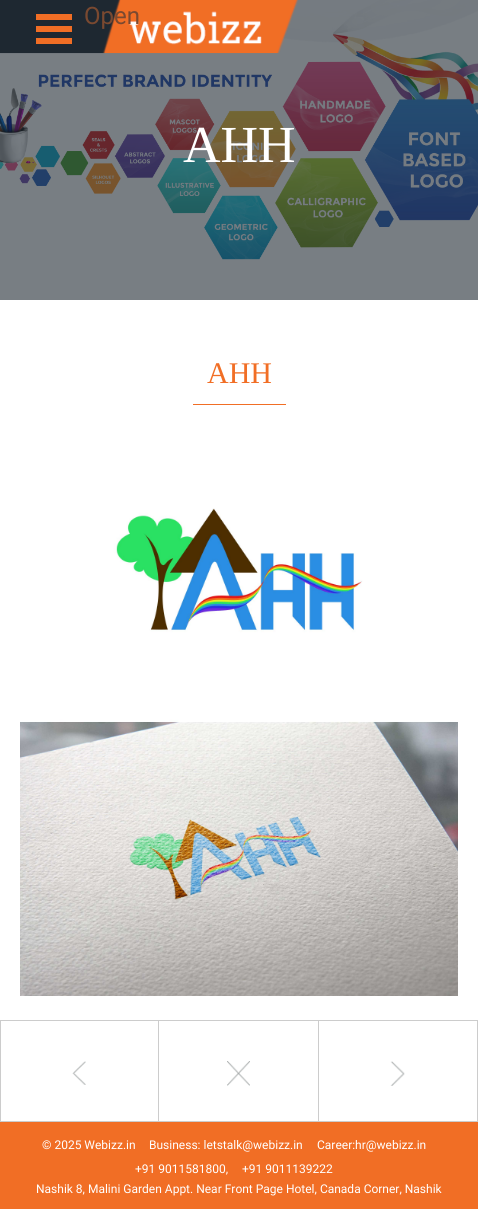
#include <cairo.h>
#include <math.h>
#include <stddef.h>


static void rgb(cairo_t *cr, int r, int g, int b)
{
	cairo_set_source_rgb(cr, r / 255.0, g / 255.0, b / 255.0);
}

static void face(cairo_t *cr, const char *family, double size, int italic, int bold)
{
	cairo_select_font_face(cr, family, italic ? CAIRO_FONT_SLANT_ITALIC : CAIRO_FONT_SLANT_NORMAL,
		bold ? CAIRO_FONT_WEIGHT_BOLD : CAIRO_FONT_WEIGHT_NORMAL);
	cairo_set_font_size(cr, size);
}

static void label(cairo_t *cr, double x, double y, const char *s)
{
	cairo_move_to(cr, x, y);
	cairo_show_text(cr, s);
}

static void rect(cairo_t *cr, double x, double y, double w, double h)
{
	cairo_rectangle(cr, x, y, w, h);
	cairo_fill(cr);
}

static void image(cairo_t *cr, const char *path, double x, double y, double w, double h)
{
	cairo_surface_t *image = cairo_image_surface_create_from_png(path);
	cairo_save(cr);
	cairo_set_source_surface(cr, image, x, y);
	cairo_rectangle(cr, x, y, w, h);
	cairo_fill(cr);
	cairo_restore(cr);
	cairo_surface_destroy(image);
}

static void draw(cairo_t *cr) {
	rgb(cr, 255, 255, 255);
	cairo_paint(cr);
	rgb(cr, 120, 126, 131);
	rect(cr, 0, 260, 478, 40);
	image(cr, "image1.png", 0, 0, 478, 260);
	image(cr, "image0.png", 0, 0, 299, 54);
	rgb(cr, 241, 110, 37);
	rect(cr, 36, 14, 36, 6);
	rect(cr, 36, 26, 36, 6);
	rect(cr, 36, 38, 36, 6);
	face(cr, "Roboto", 24, 0, 0);
	rgb(cr, 122, 73, 48);
	label(cr, 84, 24, "Open");
	face(cr, "Liberation Serif", 52, 0, 0);
	rgb(cr, 255, 255, 255);
	label(cr, 183, 162, "AHH");
	rgb(cr, 241, 110, 37);
	rect(cr, 193, 404, 93, 1);
	face(cr, "Liberation Serif", 30, 0, 0);
	label(cr, 207, 383, "AHH");
	image(cr, "image2.png", 20, 508, 438, 488);
	rgb(cr, 204, 204, 204);
	rect(cr, 0, 1020, 478, 1);
	rect(cr, 0, 1121, 478, 1);
	rect(cr, 158, 1021, 1, 100);
	rect(cr, 0, 1021, 1, 100);
	image(cr, "image3.png", 72, 1061, 14, 24);
	rect(cr, 318, 1021, 1, 100);
	image(cr, "image4.png", 227, 1061, 23, 25);
	rect(cr, 477, 1021, 1, 100);
	image(cr, "image5.png", 390, 1061, 15, 25);
	rgb(cr, 241, 110, 37);
	rect(cr, 0, 1122, 478, 87);
	face(cr, "Roboto", 12, 0, 0);
	rgb(cr, 255, 255, 255);
	label(cr, 42, 1149, "© 2025 Webizz.in");
	label(cr, 149, 1149, "Business: letstalk@webizz.in");
	label(cr, 317, 1149, "Career:hr@webizz.in");
	label(cr, 135, 1173, "+91 9011581800,");
	label(cr, 242, 1173, "+91 9011139222");
	label(cr, 36, 1193, "Nashik 8, Malini Garden Appt. Near Front Page Hotel, Canada Corner, Nashik");
}

int main(void) {
	cairo_surface_t *surface = cairo_image_surface_create(CAIRO_FORMAT_RGB24, 478, 1209);
	cairo_t *cr = cairo_create(surface);
	cairo_font_options_t *options = cairo_font_options_create();
	cairo_font_options_set_hint_metrics(options, CAIRO_HINT_METRICS_OFF);
	cairo_font_options_set_hint_style(options, CAIRO_HINT_STYLE_NONE);
	cairo_set_font_options(cr, options);
	cairo_set_miter_limit(cr, 4);
	draw(cr);
	cairo_surface_write_to_png(surface, "render.png");
	cairo_font_options_destroy(options);
	cairo_destroy(cr);
	cairo_surface_destroy(surface);
	return 0;
}
